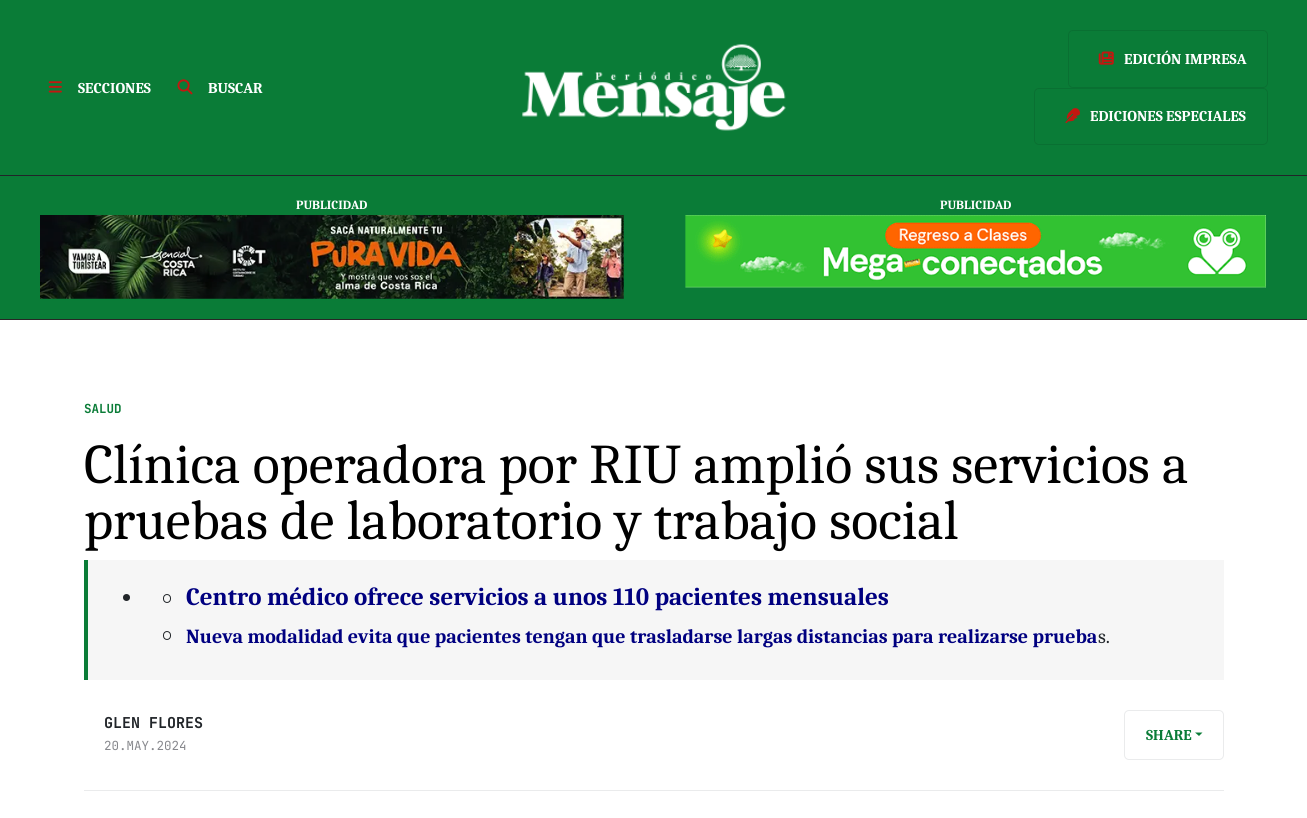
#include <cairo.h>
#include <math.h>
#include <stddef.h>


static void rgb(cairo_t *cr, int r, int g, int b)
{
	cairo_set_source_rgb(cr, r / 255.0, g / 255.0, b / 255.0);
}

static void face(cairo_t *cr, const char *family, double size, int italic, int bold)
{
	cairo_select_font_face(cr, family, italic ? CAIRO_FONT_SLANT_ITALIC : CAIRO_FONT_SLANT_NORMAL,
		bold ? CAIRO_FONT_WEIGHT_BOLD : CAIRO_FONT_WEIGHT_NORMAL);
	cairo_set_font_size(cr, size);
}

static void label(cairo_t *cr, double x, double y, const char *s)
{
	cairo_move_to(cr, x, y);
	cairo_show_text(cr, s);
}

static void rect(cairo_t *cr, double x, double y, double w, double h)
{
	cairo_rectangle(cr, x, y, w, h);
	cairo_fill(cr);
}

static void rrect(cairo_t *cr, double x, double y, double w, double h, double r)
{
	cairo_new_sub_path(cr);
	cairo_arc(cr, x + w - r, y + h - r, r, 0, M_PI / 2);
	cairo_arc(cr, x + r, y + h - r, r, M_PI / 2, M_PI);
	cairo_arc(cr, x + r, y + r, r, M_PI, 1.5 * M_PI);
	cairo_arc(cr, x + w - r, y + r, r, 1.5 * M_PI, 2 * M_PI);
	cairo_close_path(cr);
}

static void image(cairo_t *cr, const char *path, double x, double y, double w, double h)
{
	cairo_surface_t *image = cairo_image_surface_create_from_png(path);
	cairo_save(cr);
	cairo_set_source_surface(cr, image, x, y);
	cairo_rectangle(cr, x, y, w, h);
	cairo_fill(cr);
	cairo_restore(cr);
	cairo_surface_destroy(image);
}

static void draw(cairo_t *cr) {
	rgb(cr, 255, 255, 255);
	cairo_paint(cr);
	rgb(cr, 10, 124, 55);
	rect(cr, 0, 0, 1307, 175);
	rgb(cr, 33, 37, 41);
	rect(cr, 0, 175, 1307, 1);
	image(cr, "image0.png", 48, 81, 14, 12);
	face(cr, "Caladea", 15, 0, 1);
	rgb(cr, 255, 255, 255);
	label(cr, 78, 93, "SECCIONES");
	image(cr, "image1.png", 177, 79, 16, 16);
	label(cr, 208, 93, "BUSCAR");
	image(cr, "image2.png", 522, 44, 264, 87);
	rrect(cr, 1068.5, 30.5, 199, 57, 4.5);
	rgb(cr, 9, 112, 50);
	cairo_set_line_width(cr, 1);
	cairo_stroke(cr);
	image(cr, "image3.png", 1098, 51, 16, 14);
	rgb(cr, 255, 255, 255);
	label(cr, 1124, 64, "EDICIÓN IMPRESA");
	rrect(cr, 1034.5, 88.5, 233, 56, 4.5);
	rgb(cr, 9, 112, 50);
	cairo_stroke(cr);
	image(cr, "image4.png", 1065, 108, 15, 16);
	rgb(cr, 255, 255, 255);
	label(cr, 1090, 121, "EDICIONES ESPECIALES");
	rgb(cr, 10, 124, 55);
	rect(cr, 0, 176, 1307, 143);
	rgb(cr, 40, 38, 38);
	rect(cr, 0, 319, 1307, 1);
	face(cr, "Caladea", 12.5, 0, 1);
	rgb(cr, 255, 255, 255);
	label(cr, 296, 209, "PUBLICIDAD");
	image(cr, "image5.png", 40, 215, 584, 84);
	label(cr, 940, 209, "PUBLICIDAD");
	image(cr, "image6.png", 685, 215, 581, 73);
	face(cr, "JetBrains Mono", 12.5, 0, 1);
	rgb(cr, 10, 124, 55);
	label(cr, 84, 413, "SALUD");
	face(cr, "Caladea", 56, 0, 0);
	rgb(cr, 0, 0, 0);
	label(cr, 84, 483, "Clínica operadora por RIU amplió sus servicios a");
	label(cr, 84, 539, "pruebas de laboratorio y trabajo social");
	rgb(cr, 246, 246, 246);
	rect(cr, 88, 560, 1136, 120);
	rgb(cr, 10, 124, 55);
	rect(cr, 84, 560, 4, 120);
	rgb(cr, 33, 37, 41);
	cairo_new_path(cr);
	cairo_arc(cr, 126.5, 597.5, 3.5, 0, 2 * M_PI);
	cairo_fill(cr);
	rrect(cr, 163.5, 594.5, 7, 8, 3.5);
	cairo_stroke(cr);
	face(cr, "Caladea", 25, 0, 1);
	rgb(cr, 0, 0, 128);
	label(cr, 186, 605, "Centro médico ofrece servicios a unos 110 pacientes mensuales");
	rrect(cr, 163.5, 631.5, 7, 8, 3.5);
	rgb(cr, 33, 37, 41);
	cairo_stroke(cr);
	face(cr, "Caladea", 20, 0, 1);
	rgb(cr, 0, 0, 128);
	label(cr, 186, 643, "Nueva modalidad evita que pacientes tengan que trasladarse largas distancias para realizarse prueba");
	face(cr, "Caladea", 20, 0, 0);
	rgb(cr, 33, 37, 41);
	label(cr, 1098, 643, "s.");
	rgb(cr, 234, 235, 236);
	rect(cr, 84, 790, 1140, 1);
	face(cr, "JetBrains Mono", 15, 0, 1);
	rgb(cr, 33, 37, 41);
	label(cr, 104, 728, "GLEN FLORES");
	face(cr, "JetBrains Mono", 12.5, 0, 0);
	rgb(cr, 135, 136, 141);
	label(cr, 104, 750, "20.MAY.2024");
	rrect(cr, 1124.5, 710.5, 99, 49, 4.5);
	rgb(cr, 234, 235, 236);
	cairo_stroke(cr);
	face(cr, "Caladea", 15, 0, 1);
	rgb(cr, 10, 124, 55);
	label(cr, 1146, 740, "SHARE");
	cairo_new_path(cr);
	cairo_move_to(cr, 1195, 732.5);
	cairo_line_to(cr, 1202.5, 732.5);
	cairo_line_to(cr, 1199, 736);
	cairo_close_path(cr);
	cairo_fill(cr);
}

int main(void) {
	cairo_surface_t *surface = cairo_image_surface_create(CAIRO_FORMAT_RGB24, 1307, 818);
	cairo_t *cr = cairo_create(surface);
	cairo_font_options_t *options = cairo_font_options_create();
	cairo_font_options_set_hint_metrics(options, CAIRO_HINT_METRICS_OFF);
	cairo_font_options_set_hint_style(options, CAIRO_HINT_STYLE_NONE);
	cairo_set_font_options(cr, options);
	cairo_set_miter_limit(cr, 4);
	draw(cr);
	cairo_surface_write_to_png(surface, "render.png");
	cairo_font_options_destroy(options);
	cairo_destroy(cr);
	cairo_surface_destroy(surface);
	return 0;
}
